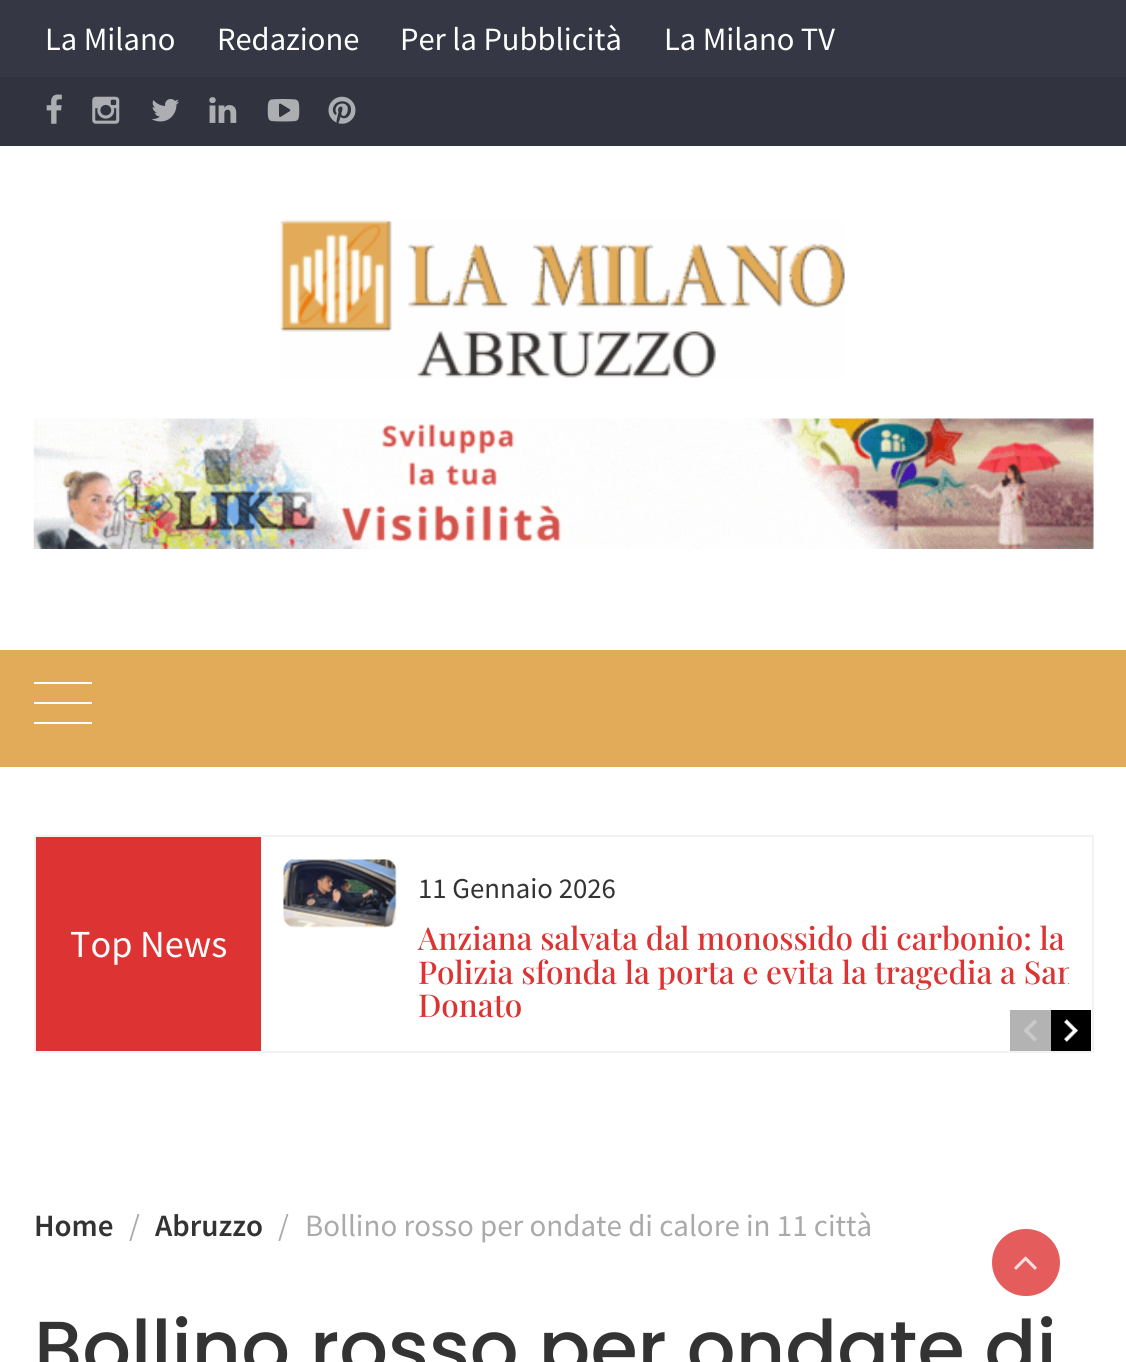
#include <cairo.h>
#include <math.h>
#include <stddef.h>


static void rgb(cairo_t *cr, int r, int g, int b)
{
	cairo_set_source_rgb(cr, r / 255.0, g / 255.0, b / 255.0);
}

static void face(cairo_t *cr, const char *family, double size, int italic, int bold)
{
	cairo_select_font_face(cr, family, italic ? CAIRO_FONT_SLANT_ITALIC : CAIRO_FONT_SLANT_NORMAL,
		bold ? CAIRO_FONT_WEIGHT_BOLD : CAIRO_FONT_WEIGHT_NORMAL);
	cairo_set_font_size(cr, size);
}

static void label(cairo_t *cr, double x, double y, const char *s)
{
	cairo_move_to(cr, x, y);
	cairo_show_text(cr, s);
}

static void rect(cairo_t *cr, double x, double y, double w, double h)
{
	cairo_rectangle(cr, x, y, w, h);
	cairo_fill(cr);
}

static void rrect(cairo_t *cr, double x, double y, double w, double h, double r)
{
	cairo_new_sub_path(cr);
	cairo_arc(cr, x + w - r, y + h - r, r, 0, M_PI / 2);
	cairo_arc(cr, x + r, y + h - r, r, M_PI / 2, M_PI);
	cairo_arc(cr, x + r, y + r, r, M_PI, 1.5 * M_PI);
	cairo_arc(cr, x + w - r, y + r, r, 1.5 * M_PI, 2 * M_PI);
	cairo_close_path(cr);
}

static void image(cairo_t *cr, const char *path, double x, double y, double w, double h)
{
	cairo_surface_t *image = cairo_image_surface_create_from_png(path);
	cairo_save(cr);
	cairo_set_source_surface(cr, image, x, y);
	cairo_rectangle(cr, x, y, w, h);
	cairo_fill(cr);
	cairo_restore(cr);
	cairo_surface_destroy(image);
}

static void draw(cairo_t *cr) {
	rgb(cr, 255, 255, 255);
	cairo_paint(cr);
	rgb(cr, 53, 56, 68);
	rect(cr, 0, 0, 1126, 77);
	face(cr, "Source Sans Pro", 32.5, 0, 0);
	rgb(cr, 255, 255, 255);
	label(cr, 45, 50, "La Milano");
	label(cr, 217, 50, "Redazione");
	label(cr, 400, 50, "Per la Pubblicità");
	label(cr, 664, 50, "La Milano TV");
	rgb(cr, 49, 52, 63);
	rect(cr, 0, 77, 1126, 69);
	image(cr, "image0.png", 46, 94, 16, 30);
	image(cr, "image1.png", 92, 96, 28, 28);
	image(cr, "image2.png", 151, 99, 28, 23);
	image(cr, "image3.png", 209, 97, 28, 26);
	image(cr, "image4.png", 267, 99, 33, 23);
	image(cr, "image5.png", 328, 96, 28, 28);
	image(cr, "image6.png", 280, 219, 565, 159);
	image(cr, "image7.png", 33, 418, 1061, 131);
	rgb(cr, 226, 171, 89);
	rect(cr, 0, 650, 1126, 117);
	rgb(cr, 255, 255, 255);
	rect(cr, 34, 682, 58, 2);
	rect(cr, 34, 702, 58, 2);
	rect(cr, 34, 722, 58, 2);
	cairo_rectangle(cr, 35, 836, 1058, 216);
	rgb(cr, 242, 242, 242);
	cairo_stroke(cr);
	rgb(cr, 221, 51, 51);
	rect(cr, 36, 837, 225, 214);
	face(cr, "Source Sans Pro", 38.25, 0, 0);
	rgb(cr, 255, 255, 255);
	label(cr, 70, 957, "Top News");
	image(cr, "image8.png", 283, 859, 114, 69);
	face(cr, "Source Sans Pro", 28.75, 0, 0);
	rgb(cr, 51, 51, 51);
	label(cr, 418, 898, "11 Gennaio 2026");
	face(cr, "Playfair Display Medium", 31.5, 0, 0);
	rgb(cr, 221, 51, 51);
	label(cr, 418, 950, "Anziana salvata dal monossido di carbonio: la");
	cairo_save(cr);
	cairo_rectangle(cr, 419, 860, 650, 168);
	cairo_clip(cr);
	label(cr, 418, 984, "Polizia sfonda la porta e evita la tragedia a San");
	cairo_restore(cr);
	label(cr, 418, 1017, "Donato");
	rgb(cr, 179, 179, 179);
	rect(cr, 1010, 1010, 41, 41);
	image(cr, "image9.png", 1023, 1019, 14, 23);
	rgb(cr, 0, 0, 0);
	rect(cr, 1051, 1010, 40, 41);
	image(cr, "image10.png", 1064, 1019, 14, 23);
	face(cr, "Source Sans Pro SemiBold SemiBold", 31, 0, 0);
	rgb(cr, 51, 51, 51);
	label(cr, 34, 1236, "Home");
	face(cr, "Source Sans Pro", 31, 0, 0);
	rgb(cr, 170, 170, 170);
	label(cr, 129, 1236, "/");
	face(cr, "Source Sans Pro SemiBold SemiBold", 31, 0, 0);
	rgb(cr, 51, 51, 51);
	label(cr, 155, 1236, "Abruzzo");
	face(cr, "Source Sans Pro", 31, 0, 0);
	rgb(cr, 170, 170, 170);
	label(cr, 278, 1236, "/");
	label(cr, 305, 1236, "Bollino rosso per ondate di calore in 11 città");
	rgb(cr, 228, 92, 92);
	rrect(cr, 992, 1229, 68, 67, 33.5);
	cairo_fill(cr);
	image(cr, "image11.png", 1014, 1256, 23, 14);
	face(cr, "Poppins Medium", 76.5, 0, 0);
	rgb(cr, 51, 51, 51);
	label(cr, 34, 1375, "Bollino rosso per ondate di");
}

int main(void) {
	cairo_surface_t *surface = cairo_image_surface_create(CAIRO_FORMAT_RGB24, 1126, 1362);
	cairo_t *cr = cairo_create(surface);
	cairo_font_options_t *options = cairo_font_options_create();
	cairo_font_options_set_hint_metrics(options, CAIRO_HINT_METRICS_OFF);
	cairo_font_options_set_hint_style(options, CAIRO_HINT_STYLE_NONE);
	cairo_set_font_options(cr, options);
	cairo_set_miter_limit(cr, 4);
	draw(cr);
	cairo_surface_write_to_png(surface, "render.png");
	cairo_font_options_destroy(options);
	cairo_destroy(cr);
	cairo_surface_destroy(surface);
	return 0;
}
